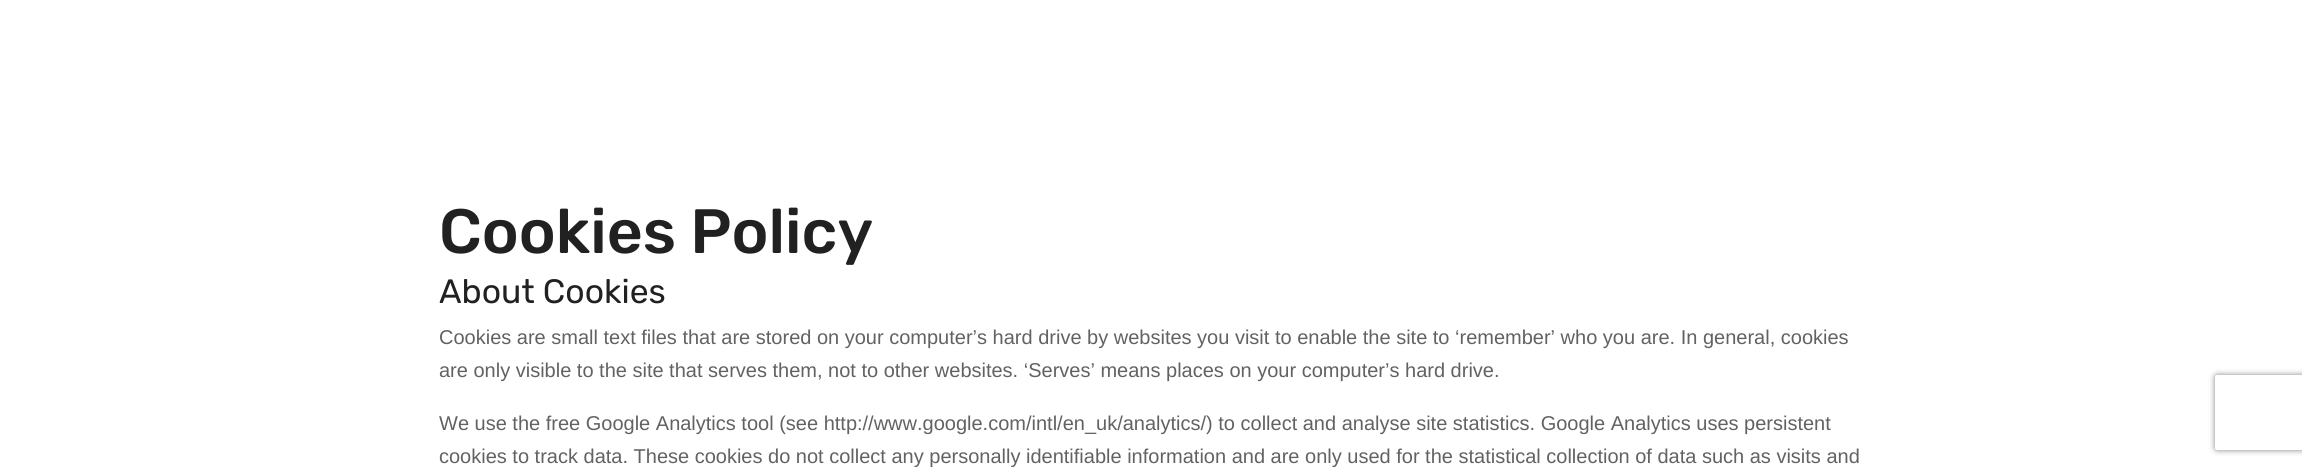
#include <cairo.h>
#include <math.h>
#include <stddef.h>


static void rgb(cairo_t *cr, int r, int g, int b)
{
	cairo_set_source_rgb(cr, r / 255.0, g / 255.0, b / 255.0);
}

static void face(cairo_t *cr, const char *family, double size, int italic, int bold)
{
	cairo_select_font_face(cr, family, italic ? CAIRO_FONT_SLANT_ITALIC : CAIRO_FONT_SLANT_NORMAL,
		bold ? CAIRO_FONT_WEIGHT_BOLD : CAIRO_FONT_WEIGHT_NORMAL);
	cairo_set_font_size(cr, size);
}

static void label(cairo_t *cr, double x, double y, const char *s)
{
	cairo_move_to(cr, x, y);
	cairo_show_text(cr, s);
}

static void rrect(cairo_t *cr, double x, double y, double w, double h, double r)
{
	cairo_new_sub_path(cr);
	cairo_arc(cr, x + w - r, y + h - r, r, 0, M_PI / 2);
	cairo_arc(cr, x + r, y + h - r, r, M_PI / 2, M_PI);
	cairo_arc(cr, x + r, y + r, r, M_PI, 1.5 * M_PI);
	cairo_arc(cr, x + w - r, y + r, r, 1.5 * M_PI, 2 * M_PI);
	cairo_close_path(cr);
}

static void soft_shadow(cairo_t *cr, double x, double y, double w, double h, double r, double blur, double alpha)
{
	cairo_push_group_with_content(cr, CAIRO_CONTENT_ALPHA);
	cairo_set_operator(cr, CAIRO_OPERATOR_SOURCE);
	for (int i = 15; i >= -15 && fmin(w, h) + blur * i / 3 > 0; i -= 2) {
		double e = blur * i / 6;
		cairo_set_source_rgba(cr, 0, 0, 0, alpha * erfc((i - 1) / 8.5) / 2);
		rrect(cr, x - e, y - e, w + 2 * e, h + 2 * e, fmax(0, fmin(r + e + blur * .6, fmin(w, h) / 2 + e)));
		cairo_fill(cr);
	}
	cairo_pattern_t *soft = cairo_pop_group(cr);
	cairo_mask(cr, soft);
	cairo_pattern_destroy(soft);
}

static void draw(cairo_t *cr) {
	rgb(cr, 255, 255, 255);
	cairo_paint(cr);
	face(cr, "Rubik Medium", 62.5, 0, 0);
	rgb(cr, 33, 33, 33);
	label(cr, 439, 253, "Cookies Policy");
	face(cr, "Rubik", 33.75, 0, 0);
	label(cr, 439, 303, "About Cookies");
	face(cr, "Liberation Sans", 20, 0, 0);
	rgb(cr, 99, 98, 98);
	label(cr, 439, 344, "Cookies are small text files that are stored on your computer’s hard drive by websites you visit to enable the site to ‘remember’ who you are. In general, cookies");
	label(cr, 439, 377, "are only visible to the site that serves them, not to other websites. ‘Serves’ means places on your computer’s hard drive.");
	label(cr, 439, 430, "We use the free Google Analytics tool (see http://www.google.com/intl/en_uk/analytics/) to collect and analyse site statistics. Google Analytics uses persistent");
	label(cr, 439, 463, "cookies to track data. These cookies do not collect any personally identifiable information and are only used for the statistical collection of data such as visits and");
	cairo_save(cr);
	cairo_set_fill_rule(cr, CAIRO_FILL_RULE_EVEN_ODD);
	cairo_new_path(cr);
	cairo_move_to(cr, 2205, 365);
	cairo_line_to(cr, 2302, 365);
	cairo_line_to(cr, 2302, 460);
	cairo_line_to(cr, 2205, 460);
	cairo_close_path(cr);
	cairo_move_to(cr, 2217.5, 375);
	cairo_line_to(cr, 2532.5, 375);
	cairo_curve_to(cr, 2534, 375, 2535, 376, 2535, 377.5);
	cairo_line_to(cr, 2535, 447.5);
	cairo_curve_to(cr, 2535, 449, 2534, 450, 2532.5, 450);
	cairo_line_to(cr, 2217.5, 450);
	cairo_curve_to(cr, 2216, 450, 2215, 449, 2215, 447.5);
	cairo_line_to(cr, 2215, 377.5);
	cairo_curve_to(cr, 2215, 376, 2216, 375, 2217.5, 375);
	cairo_close_path(cr);
	cairo_clip(cr);
	rgb(cr, 128, 128, 128);
	soft_shadow(cr, 2215, 375, 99, 75, 2.5, 3, 1);
	cairo_restore(cr);
}

int main(void) {
	cairo_surface_t *surface = cairo_image_surface_create(CAIRO_FORMAT_RGB24, 2302, 467);
	cairo_t *cr = cairo_create(surface);
	cairo_font_options_t *options = cairo_font_options_create();
	cairo_font_options_set_hint_metrics(options, CAIRO_HINT_METRICS_OFF);
	cairo_font_options_set_hint_style(options, CAIRO_HINT_STYLE_NONE);
	cairo_set_font_options(cr, options);
	cairo_set_miter_limit(cr, 4);
	draw(cr);
	cairo_surface_write_to_png(surface, "render.png");
	cairo_font_options_destroy(options);
	cairo_destroy(cr);
	cairo_surface_destroy(surface);
	return 0;
}
